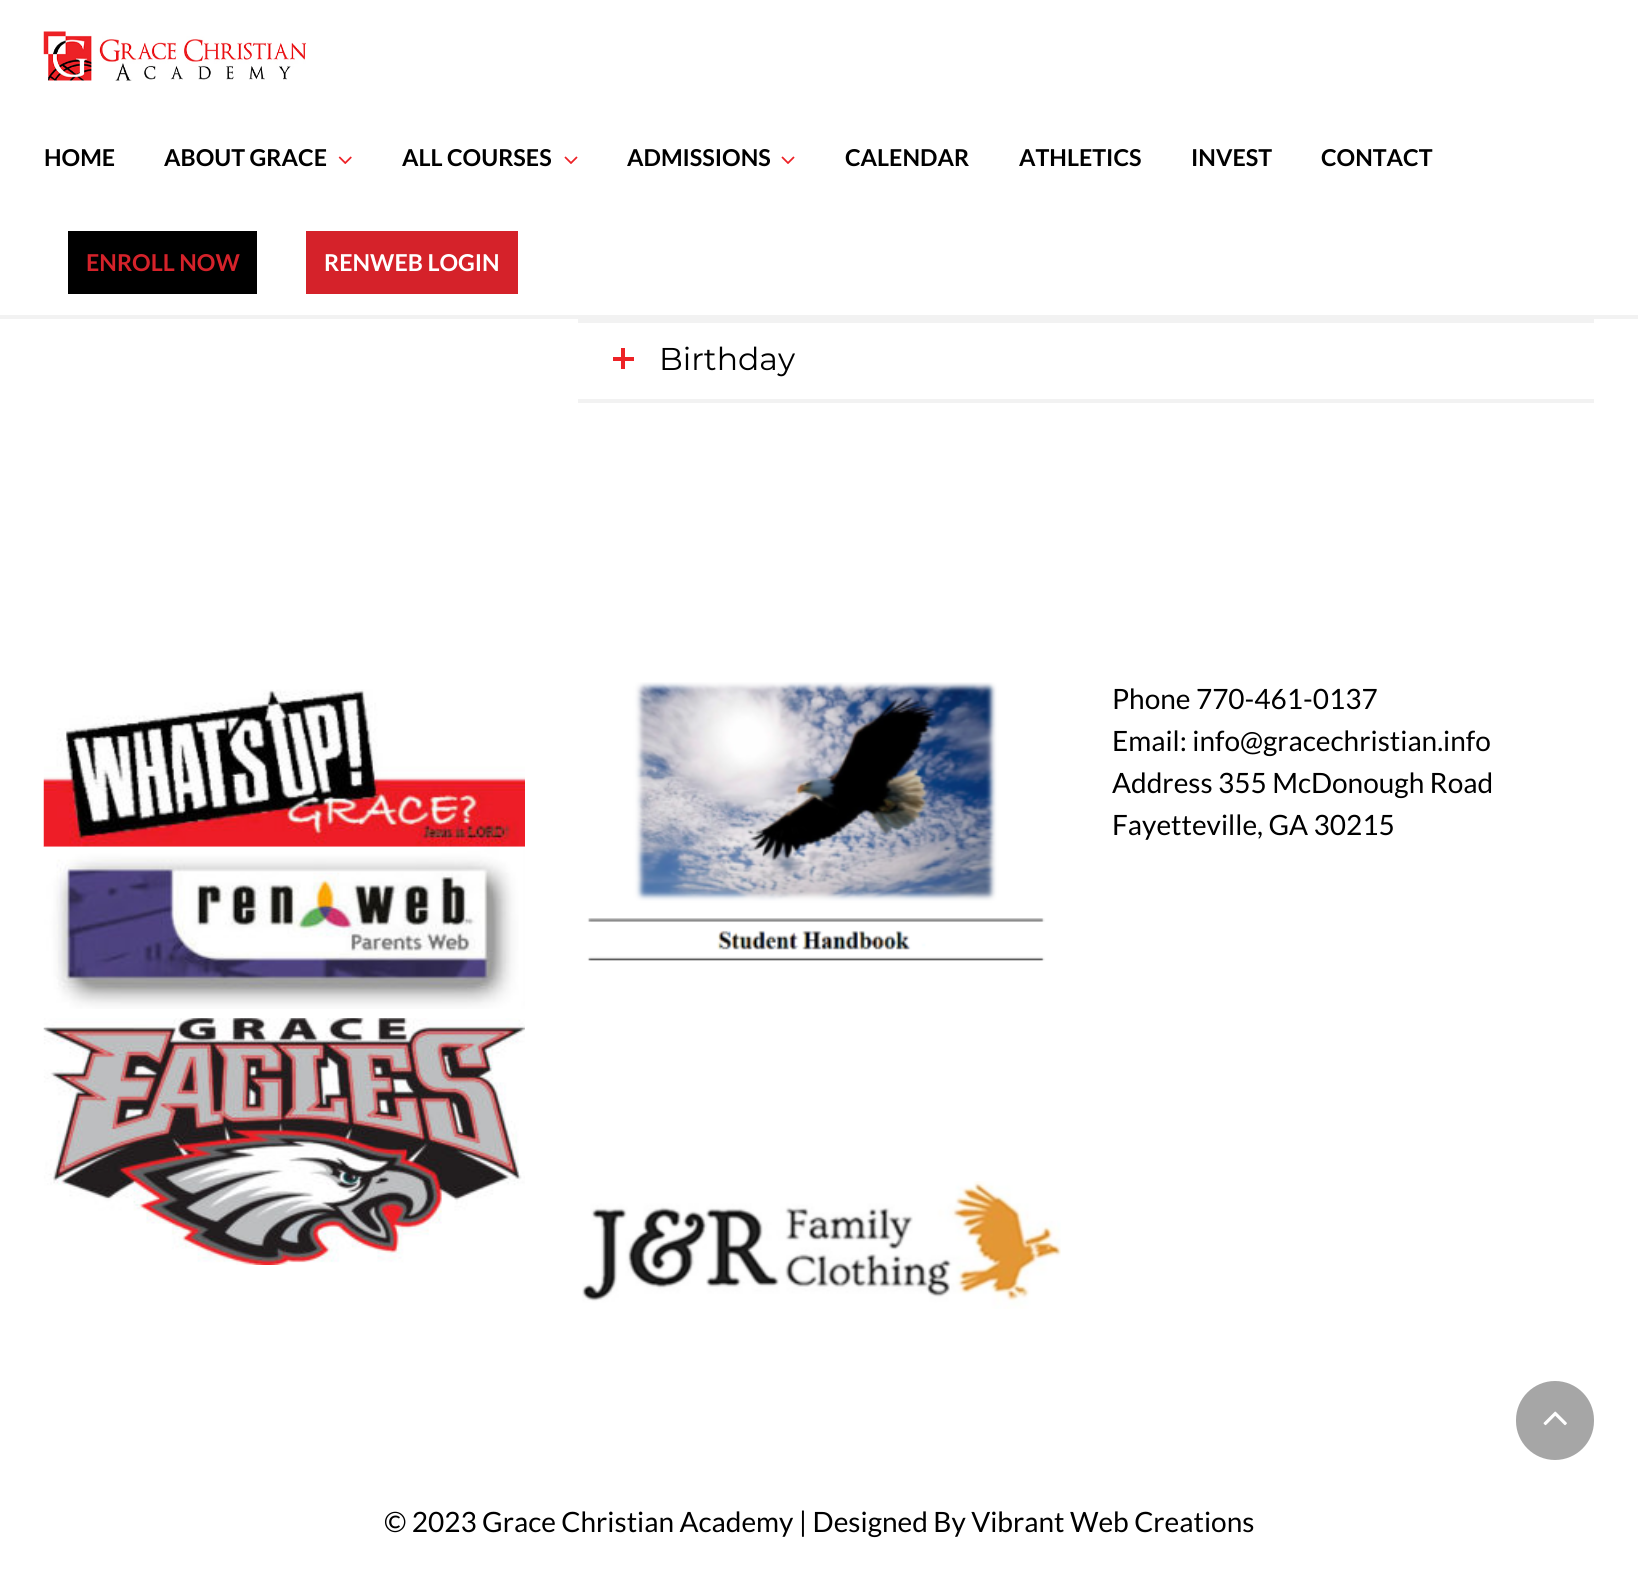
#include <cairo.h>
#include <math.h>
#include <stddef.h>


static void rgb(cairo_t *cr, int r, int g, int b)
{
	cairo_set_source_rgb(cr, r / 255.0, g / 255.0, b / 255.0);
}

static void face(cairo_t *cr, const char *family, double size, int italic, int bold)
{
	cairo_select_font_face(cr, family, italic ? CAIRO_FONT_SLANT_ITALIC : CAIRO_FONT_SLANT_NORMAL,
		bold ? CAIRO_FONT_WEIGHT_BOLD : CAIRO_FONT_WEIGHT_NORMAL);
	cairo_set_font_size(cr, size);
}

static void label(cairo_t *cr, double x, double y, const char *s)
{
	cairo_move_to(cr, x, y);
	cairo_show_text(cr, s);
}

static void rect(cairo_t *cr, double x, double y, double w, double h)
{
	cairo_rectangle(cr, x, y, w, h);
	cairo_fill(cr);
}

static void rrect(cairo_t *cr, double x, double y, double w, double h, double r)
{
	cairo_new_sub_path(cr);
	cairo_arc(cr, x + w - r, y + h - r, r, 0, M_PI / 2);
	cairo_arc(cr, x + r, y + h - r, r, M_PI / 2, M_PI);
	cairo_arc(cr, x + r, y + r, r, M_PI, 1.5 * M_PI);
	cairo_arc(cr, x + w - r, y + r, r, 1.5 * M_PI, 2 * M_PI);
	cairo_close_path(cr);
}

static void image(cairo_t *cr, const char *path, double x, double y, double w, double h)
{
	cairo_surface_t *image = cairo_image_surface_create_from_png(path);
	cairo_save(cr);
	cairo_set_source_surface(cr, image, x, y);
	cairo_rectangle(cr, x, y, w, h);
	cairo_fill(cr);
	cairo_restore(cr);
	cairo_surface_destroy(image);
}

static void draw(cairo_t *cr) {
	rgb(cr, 255, 255, 255);
	cairo_paint(cr);
	rgb(cr, 242, 242, 242);
	rect(cr, 0, 315, 1638, 4);
	image(cr, "image0.png", 43, 31, 264, 50);
	face(cr, "Lato", 23.25, 0, 1);
	rgb(cr, 0, 0, 0);
	label(cr, 44, 166, "HOME");
	label(cr, 164, 166, "ABOUT GRACE");
	image(cr, "image1.png", 338, 156, 14, 8);
	label(cr, 402, 166, "ALL COURSES");
	image(cr, "image2.png", 564, 156, 14, 8);
	label(cr, 627, 166, "ADMISSIONS");
	image(cr, "image2.png", 781, 156, 14, 8);
	label(cr, 845, 166, "CALENDAR");
	label(cr, 1019, 166, "ATHLETICS");
	label(cr, 1191, 166, "INVEST");
	label(cr, 1321, 166, "CONTACT");
	rect(cr, 68, 231, 189, 63);
	rgb(cr, 213, 34, 42);
	label(cr, 86, 271, "ENROLL NOW");
	rect(cr, 306, 231, 212, 63);
	rgb(cr, 255, 255, 255);
	label(cr, 324, 271, "RENWEB LOGIN");
	rgb(cr, 242, 242, 242);
	rect(cr, 578, 319, 1016, 4);
	rect(cr, 578, 399, 1016, 4);
	rgb(cr, 237, 34, 38);
	rect(cr, 613, 357, 21, 4);
	rect(cr, 621, 348, 4, 21);
	face(cr, "Montserrat", 31.5, 0, 0);
	rgb(cr, 0, 0, 0);
	label(cr, 659, 370, "Birthday");
	image(cr, "image3.png", 43, 689, 482, 158);
	image(cr, "image4.png", 44, 846, 481, 163);
	image(cr, "image5.png", 43, 1018, 482, 247);
	image(cr, "image6.png", 587, 682, 458, 279);
	image(cr, "image7.png", 582, 1181, 479, 128);
	face(cr, "Lato", 28, 0, 0);
	label(cr, 1112, 709, "Phone 770-461-0137");
	label(cr, 1112, 751, "Email: info@gracechristian.info");
	label(cr, 1112, 793, "Address 355 McDonough Road");
	label(cr, 1112, 835, "Fayetteville, GA 30215");
	label(cr, 384, 1532, "© 2023 Grace Christian Academy | Designed By Vibrant Web Creations");
	rgb(cr, 166, 166, 166);
	rrect(cr, 1516, 1381, 78, 79, 39);
	cairo_fill(cr);
	image(cr, "image8.png", 1543, 1411, 24, 15);
}

int main(void) {
	cairo_surface_t *surface = cairo_image_surface_create(CAIRO_FORMAT_RGB24, 1638, 1579);
	cairo_t *cr = cairo_create(surface);
	cairo_font_options_t *options = cairo_font_options_create();
	cairo_font_options_set_hint_metrics(options, CAIRO_HINT_METRICS_OFF);
	cairo_font_options_set_hint_style(options, CAIRO_HINT_STYLE_NONE);
	cairo_set_font_options(cr, options);
	cairo_set_miter_limit(cr, 4);
	draw(cr);
	cairo_surface_write_to_png(surface, "render.png");
	cairo_font_options_destroy(options);
	cairo_destroy(cr);
	cairo_surface_destroy(surface);
	return 0;
}
